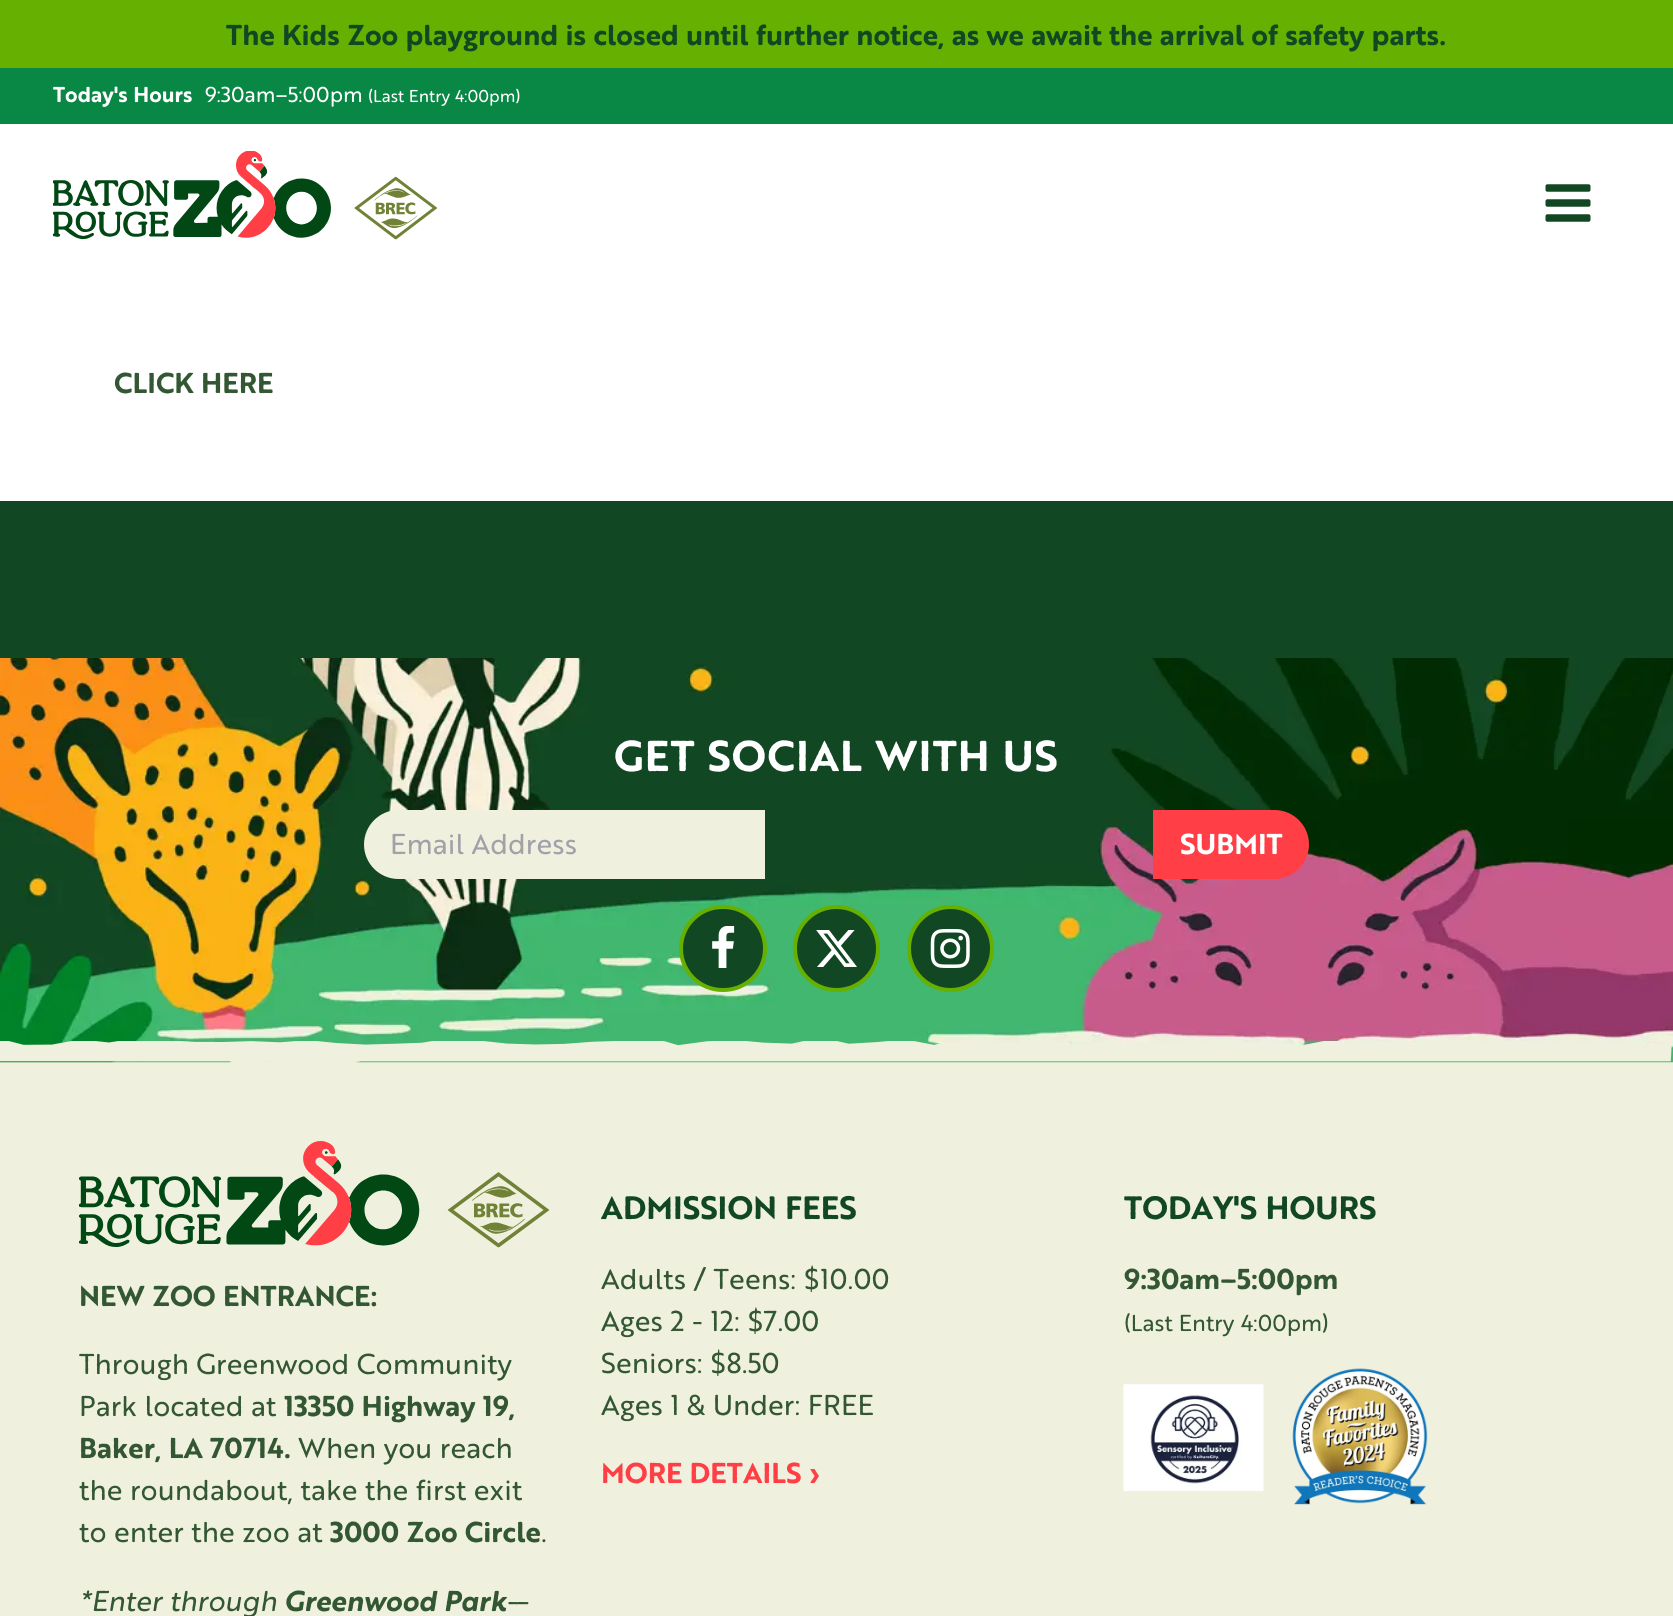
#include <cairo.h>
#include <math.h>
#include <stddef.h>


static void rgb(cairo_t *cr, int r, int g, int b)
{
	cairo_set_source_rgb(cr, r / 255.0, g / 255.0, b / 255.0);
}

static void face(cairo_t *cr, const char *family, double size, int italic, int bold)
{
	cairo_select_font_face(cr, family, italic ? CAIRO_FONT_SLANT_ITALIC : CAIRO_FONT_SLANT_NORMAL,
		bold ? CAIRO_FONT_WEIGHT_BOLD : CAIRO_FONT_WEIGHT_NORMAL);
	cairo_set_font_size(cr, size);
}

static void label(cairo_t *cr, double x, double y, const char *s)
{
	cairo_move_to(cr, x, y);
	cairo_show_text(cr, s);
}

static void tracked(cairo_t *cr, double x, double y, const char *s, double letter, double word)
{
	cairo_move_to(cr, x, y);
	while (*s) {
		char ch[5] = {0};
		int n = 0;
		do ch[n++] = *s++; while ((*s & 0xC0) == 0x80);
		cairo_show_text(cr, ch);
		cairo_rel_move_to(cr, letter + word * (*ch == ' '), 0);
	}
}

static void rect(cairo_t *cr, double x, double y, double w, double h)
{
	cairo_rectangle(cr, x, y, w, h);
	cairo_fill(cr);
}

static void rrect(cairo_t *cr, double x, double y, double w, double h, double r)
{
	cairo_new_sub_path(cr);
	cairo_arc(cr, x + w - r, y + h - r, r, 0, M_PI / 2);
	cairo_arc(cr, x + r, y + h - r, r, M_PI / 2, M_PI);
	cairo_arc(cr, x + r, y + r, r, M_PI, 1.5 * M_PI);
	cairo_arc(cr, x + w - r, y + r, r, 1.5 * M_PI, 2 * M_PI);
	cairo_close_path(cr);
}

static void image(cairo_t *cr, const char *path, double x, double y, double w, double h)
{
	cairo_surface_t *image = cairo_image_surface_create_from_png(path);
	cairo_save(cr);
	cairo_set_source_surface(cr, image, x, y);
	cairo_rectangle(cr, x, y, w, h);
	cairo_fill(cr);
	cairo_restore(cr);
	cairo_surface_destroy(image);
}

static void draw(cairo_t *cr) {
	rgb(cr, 255, 255, 255);
	cairo_paint(cr);
	rgb(cr, 101, 176, 0);
	rect(cr, 0, 0, 1673, 68);
	face(cr, "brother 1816", 28, 0, 1);
	rgb(cr, 17, 71, 35);
	label(cr, 226, 45, "The Kids Zoo playground is closed until further notice, as we await the arrival of safety parts.");
	rgb(cr, 9, 135, 69);
	rect(cr, 0, 68, 1673, 56);
	face(cr, "brother 1816", 21, 0, 1);
	rgb(cr, 255, 255, 255);
	label(cr, 53, 102, "Today's Hours");
	face(cr, "brother 1816", 21, 0, 0);
	label(cr, 205, 102, "9:30am–5:00pm");
	face(cr, "brother 1816", 16.75, 0, 0);
	label(cr, 368, 102, "(Last Entry 4:00pm)");
	image(cr, "image0.png", 53, 151, 384, 89);
	image(cr, "image1.png", 1545, 184, 46, 38);
	face(cr, "brother 1816", 28, 0, 1);
	rgb(cr, 50, 87, 50);
	label(cr, 114, 393, "CLICK HERE");
	rgb(cr, 17, 71, 35);
	rect(cr, 0, 501, 1673, 157);
	rgb(cr, 239, 240, 222);
	rect(cr, 0, 1062, 1673, 554);
	image(cr, "image2.png", 0, 658, 1673, 405);
	face(cr, "brother 1816", 42, 0, 1);
	rgb(cr, 255, 255, 255);
	tracked(cr, 614, 771, "GET SOCIAL WITH US", 1, 0);
	rgb(cr, 239, 240, 222);
	cairo_new_path(cr);
	cairo_move_to(cr, 398.5, 810);
	cairo_line_to(cr, 765, 810);
	cairo_line_to(cr, 765, 879);
	cairo_line_to(cr, 398.5, 879);
	cairo_curve_to(cr, 379.5, 879, 364, 863.5, 364, 844.5);
	cairo_curve_to(cr, 364, 825.5, 379.5, 810, 398.5, 810);
	cairo_close_path(cr);
	cairo_fill(cr);
	face(cr, "brother 1816", 28, 0, 0);
	rgb(cr, 161, 161, 170);
	label(cr, 390, 854, "Email Address");
	rgb(cr, 255, 62, 70);
	cairo_new_path(cr);
	cairo_move_to(cr, 1153, 810);
	cairo_line_to(cr, 1274.5, 810);
	cairo_curve_to(cr, 1293.5, 810, 1309, 825.5, 1309, 844.5);
	cairo_curve_to(cr, 1309, 863.5, 1293.5, 879, 1274.5, 879);
	cairo_line_to(cr, 1153, 879);
	cairo_close_path(cr);
	cairo_fill(cr);
	face(cr, "brother 1816", 28, 0, 1);
	rgb(cr, 255, 255, 255);
	label(cr, 1180, 854, "SUBMIT");
	rgb(cr, 17, 71, 35);
	rrect(cr, 681, 907, 84, 83, 41.5);
	cairo_fill_preserve(cr);
	rgb(cr, 101, 176, 0);
	cairo_set_line_width(cr, 4);
	cairo_stroke(cr);
	image(cr, "image3.png", 712, 926, 23, 42);
	rgb(cr, 17, 71, 35);
	cairo_arc(cr, 836.5, 948.5, 41.5, 0, 2 * M_PI);
	cairo_fill_preserve(cr);
	rgb(cr, 101, 176, 0);
	cairo_stroke(cr);
	image(cr, "image4.png", 816, 930, 41, 37);
	rgb(cr, 17, 71, 35);
	cairo_arc(cr, 950.5, 948.5, 41.5, 0, 2 * M_PI);
	cairo_fill_preserve(cr);
	rgb(cr, 101, 176, 0);
	cairo_stroke(cr);
	image(cr, "image5.png", 930, 929, 40, 39);
	image(cr, "image6.png", 0, 1041, 1672, 21);
	face(cr, "brother 1816", 31.5, 0, 1);
	rgb(cr, 17, 71, 35);
	label(cr, 601, 1219, "ADMISSION FEES");
	face(cr, "brother 1816", 28, 0, 0);
	rgb(cr, 50, 87, 50);
	label(cr, 601, 1289, "Adults / Teens: $10.00");
	label(cr, 601, 1331, "Ages 2 - 12: $7.00");
	label(cr, 601, 1373, "Seniors: $8.50");
	label(cr, 601, 1415, "Ages 1 & Under: FREE");
	face(cr, "brother 1816", 28, 0, 1);
	rgb(cr, 255, 62, 70);
	label(cr, 601, 1483, "MORE DETAILS ›");
	face(cr, "brother 1816", 31.5, 0, 1);
	rgb(cr, 17, 71, 35);
	label(cr, 1124, 1219, "TODAY'S HOURS");
	face(cr, "brother 1816", 28, 0, 1);
	rgb(cr, 50, 87, 50);
	label(cr, 1124, 1289, "9:30am–5:00pm");
	face(cr, "brother 1816", 22.5, 0, 0);
	label(cr, 1124, 1331, "(Last Entry 4:00pm)");
	image(cr, "image7.png", 1123, 1384, 141, 107);
	image(cr, "image8.png", 1292, 1368, 136, 137);
	image(cr, "image9.png", 79, 1141, 471, 107);
	face(cr, "brother 1816", 28, 0, 1);
	label(cr, 79, 1306, "NEW ZOO ENTRANCE:");
	face(cr, "brother 1816", 28, 0, 0);
	label(cr, 79, 1374, "Through Greenwood Community");
	label(cr, 79, 1416, "Park located at");
	face(cr, "brother 1816", 28, 0, 1);
	label(cr, 284, 1416, "13350 Highway 19,");
	label(cr, 79, 1458, "Baker, LA 70714.");
	face(cr, "brother 1816", 28, 0, 0);
	label(cr, 298, 1458, "When you reach");
	label(cr, 79, 1500, "the roundabout, take the first exit");
	label(cr, 79, 1542, "to enter the zoo at");
	face(cr, "brother 1816", 28, 0, 1);
	label(cr, 330, 1542, "3000 Zoo Circle");
	face(cr, "brother 1816", 28, 0, 0);
	label(cr, 541, 1542, ".");
	face(cr, "brother 1816", 28, 1, 0);
	label(cr, 79, 1611, "*Enter through");
	face(cr, "brother 1816", 28, 1, 1);
	label(cr, 284, 1611, "Greenwood Park");
	face(cr, "brother 1816", 28, 1, 0);
	label(cr, 506, 1611, "—");
}

int main(void) {
	cairo_surface_t *surface = cairo_image_surface_create(CAIRO_FORMAT_RGB24, 1673, 1616);
	cairo_t *cr = cairo_create(surface);
	cairo_font_options_t *options = cairo_font_options_create();
	cairo_font_options_set_hint_metrics(options, CAIRO_HINT_METRICS_OFF);
	cairo_font_options_set_hint_style(options, CAIRO_HINT_STYLE_NONE);
	cairo_set_font_options(cr, options);
	cairo_set_miter_limit(cr, 4);
	draw(cr);
	cairo_surface_write_to_png(surface, "render.png");
	cairo_font_options_destroy(options);
	cairo_destroy(cr);
	cairo_surface_destroy(surface);
	return 0;
}
